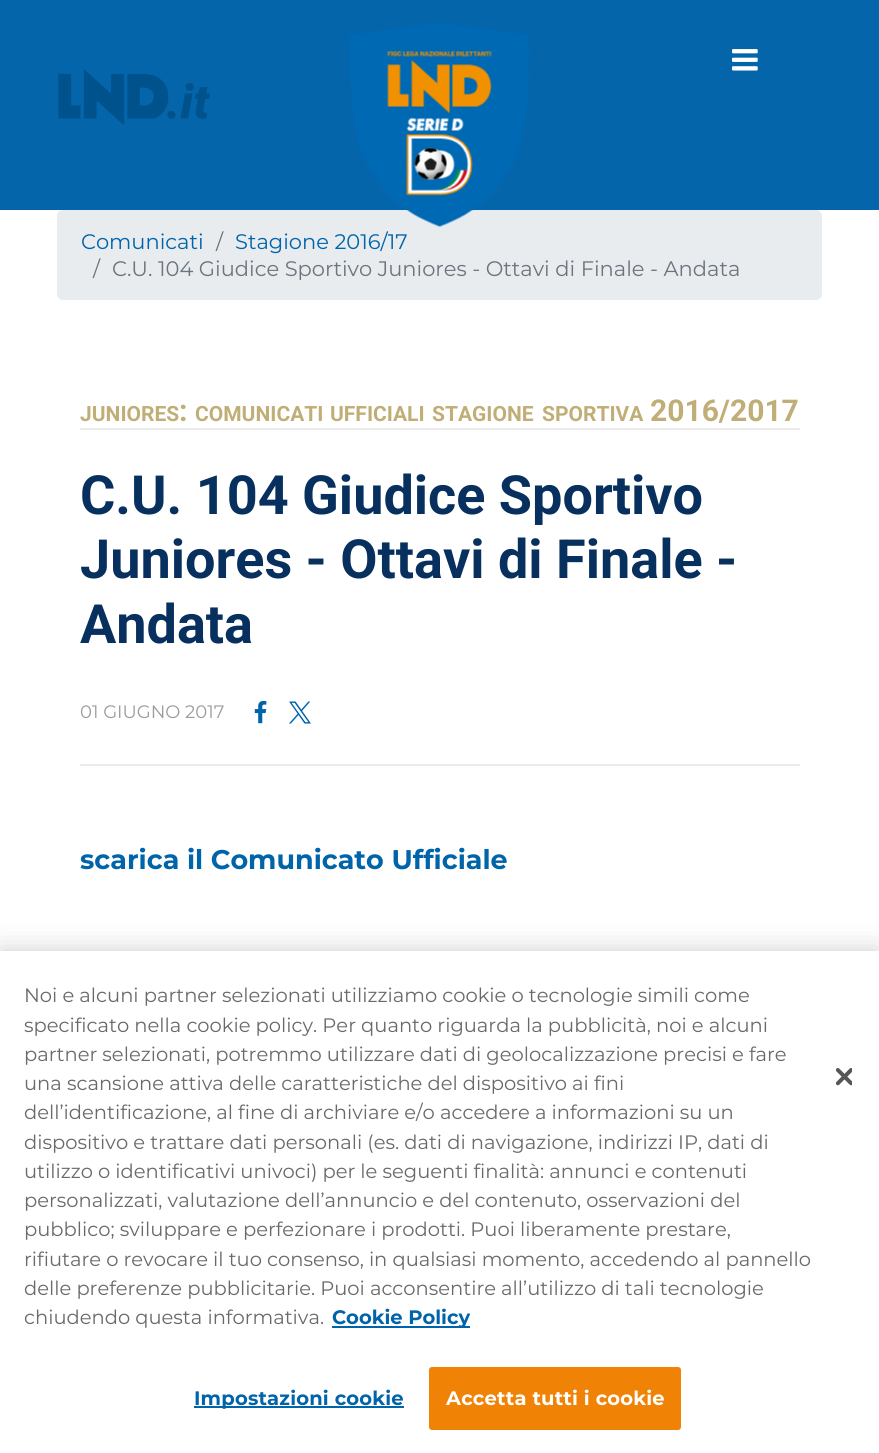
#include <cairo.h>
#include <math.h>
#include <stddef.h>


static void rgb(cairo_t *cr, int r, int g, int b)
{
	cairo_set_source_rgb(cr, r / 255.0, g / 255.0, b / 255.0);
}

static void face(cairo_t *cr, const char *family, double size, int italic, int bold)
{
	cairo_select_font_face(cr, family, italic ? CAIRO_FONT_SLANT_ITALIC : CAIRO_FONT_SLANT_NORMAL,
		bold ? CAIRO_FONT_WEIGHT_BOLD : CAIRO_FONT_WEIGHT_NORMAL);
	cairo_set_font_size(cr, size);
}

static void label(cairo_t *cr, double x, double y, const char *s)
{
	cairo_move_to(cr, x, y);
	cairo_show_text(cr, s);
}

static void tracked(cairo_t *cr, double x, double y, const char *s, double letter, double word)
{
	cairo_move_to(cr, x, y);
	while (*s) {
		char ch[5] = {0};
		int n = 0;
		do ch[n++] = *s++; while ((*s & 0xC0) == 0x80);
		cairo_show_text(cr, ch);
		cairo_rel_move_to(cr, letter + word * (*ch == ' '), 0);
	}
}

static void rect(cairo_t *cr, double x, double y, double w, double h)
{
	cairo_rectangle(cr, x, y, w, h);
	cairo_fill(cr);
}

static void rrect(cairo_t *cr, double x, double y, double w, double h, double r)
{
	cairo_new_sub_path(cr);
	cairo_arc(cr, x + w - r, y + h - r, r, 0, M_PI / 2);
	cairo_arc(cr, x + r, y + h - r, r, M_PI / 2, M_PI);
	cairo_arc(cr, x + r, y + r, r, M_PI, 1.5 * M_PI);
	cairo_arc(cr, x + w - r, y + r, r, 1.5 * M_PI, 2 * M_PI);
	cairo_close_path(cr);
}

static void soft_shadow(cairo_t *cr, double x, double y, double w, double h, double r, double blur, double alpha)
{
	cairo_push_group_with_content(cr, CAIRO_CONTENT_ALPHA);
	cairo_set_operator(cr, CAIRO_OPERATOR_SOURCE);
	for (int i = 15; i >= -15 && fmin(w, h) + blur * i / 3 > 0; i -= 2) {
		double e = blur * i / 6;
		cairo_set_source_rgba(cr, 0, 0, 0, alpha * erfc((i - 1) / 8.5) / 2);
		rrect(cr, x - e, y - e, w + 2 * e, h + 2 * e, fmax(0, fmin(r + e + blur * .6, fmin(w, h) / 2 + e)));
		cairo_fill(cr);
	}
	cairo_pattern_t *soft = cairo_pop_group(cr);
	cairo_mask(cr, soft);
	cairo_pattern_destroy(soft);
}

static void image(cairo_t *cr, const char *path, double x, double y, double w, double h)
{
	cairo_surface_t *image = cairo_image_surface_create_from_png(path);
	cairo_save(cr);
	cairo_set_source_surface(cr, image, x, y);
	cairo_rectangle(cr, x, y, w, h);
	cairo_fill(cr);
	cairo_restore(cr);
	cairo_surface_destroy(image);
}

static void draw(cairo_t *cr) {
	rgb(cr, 255, 255, 255);
	cairo_paint(cr);
	rgb(cr, 4, 101, 171);
	rect(cr, 0, 0, 879, 210);
	rgb(cr, 233, 236, 239);
	rrect(cr, 57, 210, 765, 90, 6);
	cairo_fill(cr);
	image(cr, "image0.png", 349, 23, 181, 204);
	image(cr, "image1.png", 732, 49, 26, 22);
	image(cr, "image2.png", 58, 69, 152, 56);
	face(cr, "Montserrat", 21, 0, 0);
	rgb(cr, 0, 100, 171);
	label(cr, 81, 249, "Comunicati");
	rgb(cr, 108, 117, 125);
	label(cr, 216, 249, "/");
	rgb(cr, 0, 100, 171);
	label(cr, 235, 249, "Stagione 2016/17");
	rgb(cr, 108, 117, 125);
	label(cr, 93, 276, "/");
	label(cr, 112, 276, "C.U. 104 Giudice Sportivo Juniores - Ottavi di Finale - Andata");
	rgb(cr, 235, 235, 235);
	rect(cr, 80, 428, 720, 2);
	face(cr, "Roboto", 21, 0, 1);
	rgb(cr, 192, 174, 118);
	label(cr, 80, 421, "JUNIORES");
	face(cr, "Roboto", 30, 0, 1);
	label(cr, 179, 421, ":");
	face(cr, "Roboto", 21, 0, 1);
	label(cr, 195, 421, "COMUNICATI");
	label(cr, 330, 421, "UFFICIALI");
	label(cr, 432, 421, "STAGIONE");
	label(cr, 542, 421, "SPORTIVA");
	face(cr, "Roboto", 30, 0, 1);
	label(cr, 650, 421, "2016/2017");
	face(cr, "Roboto", 54, 0, 1);
	rgb(cr, 8, 48, 94);
	label(cr, 80, 514, "C.U. 104 Giudice Sportivo");
	label(cr, 80, 578, "Juniores - Ottavi di Finale -");
	label(cr, 80, 643, "Andata");
	rgb(cr, 235, 235, 235);
	rect(cr, 80, 764, 720, 2);
	face(cr, "Montserrat", 18, 0, 0);
	rgb(cr, 155, 155, 155);
	label(cr, 80, 718, "01 GIUGNO 2017");
	image(cr, "image3.png", 254, 700, 13, 24);
	image(cr, "image4.png", 289, 701, 22, 23);
	face(cr, "Montserrat", 27, 0, 1);
	rgb(cr, 0, 100, 171);
	label(cr, 80, 869, "scarica il Comunicato Ufficiale");
	rgb(cr, 0, 0, 0);
	soft_shadow(cr, 0, 951, 879, 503, 0, 13.5, 0.2);
	rgb(cr, 255, 255, 255);
	rect(cr, 0, 951, 879, 502);
	face(cr, "Montserrat", 19.5, 0, 0);
	rgb(cr, 105, 105, 105);
	label(cr, 24, 1002, "Noi e alcuni partner selezionati utilizziamo cookie o tecnologie simili come");
	label(cr, 24, 1032, "specificato nella cookie policy. Per quanto riguarda la pubblicità, noi e alcuni");
	label(cr, 24, 1061, "partner selezionati, potremmo utilizzare dati di geolocalizzazione precisi e fare");
	label(cr, 24, 1090, "una scansione attiva delle caratteristiche del dispositivo ai fini");
	label(cr, 24, 1119, "dell’identificazione, al fine di archiviare e/o accedere a informazioni su un");
	label(cr, 24, 1149, "dispositivo e trattare dati personali (es. dati di navigazione, indirizzi IP, dati di");
	label(cr, 24, 1178, "utilizzo o identificativi univoci) per le seguenti finalità: annunci e contenuti");
	label(cr, 24, 1207, "personalizzati, valutazione dell’annuncio e del contenuto, osservazioni del");
	label(cr, 24, 1236, "pubblico; sviluppare e perfezionare i prodotti. Puoi liberamente prestare,");
	label(cr, 24, 1266, "rifiutare o revocare il tuo consenso, in qualsiasi momento, accedendo al pannello");
	label(cr, 24, 1295, "delle preferenze pubblicitarie. Puoi acconsentire all’utilizzo di tali tecnologie");
	label(cr, 24, 1324, "chiudendo questa informativa.");
	rgb(cr, 0, 100, 171);
	rect(cr, 332, 1326, 138, 2);
	face(cr, "Montserrat", 19.5, 0, 1);
	label(cr, 332, 1324, "Cookie Policy");
	image(cr, "image5.png", 836, 1068, 16, 18);
	rect(cr, 194, 1406, 210, 2);
	tracked(cr, 194, 1405, "Impostazioni cookie", 0.2, 0);
	rgb(cr, 240, 130, 5);
	rrect(cr, 430, 1368, 250, 61, 2);
	cairo_fill_preserve(cr);
	cairo_stroke(cr);
	rgb(cr, 255, 255, 255);
	tracked(cr, 446, 1405, "Accetta tutti i cookie", 0.2, 0);
}

int main(void) {
	cairo_surface_t *surface = cairo_image_surface_create(CAIRO_FORMAT_RGB24, 879, 1453);
	cairo_t *cr = cairo_create(surface);
	cairo_font_options_t *options = cairo_font_options_create();
	cairo_font_options_set_hint_metrics(options, CAIRO_HINT_METRICS_OFF);
	cairo_font_options_set_hint_style(options, CAIRO_HINT_STYLE_NONE);
	cairo_set_font_options(cr, options);
	cairo_set_miter_limit(cr, 4);
	draw(cr);
	cairo_surface_write_to_png(surface, "render.png");
	cairo_font_options_destroy(options);
	cairo_destroy(cr);
	cairo_surface_destroy(surface);
	return 0;
}
